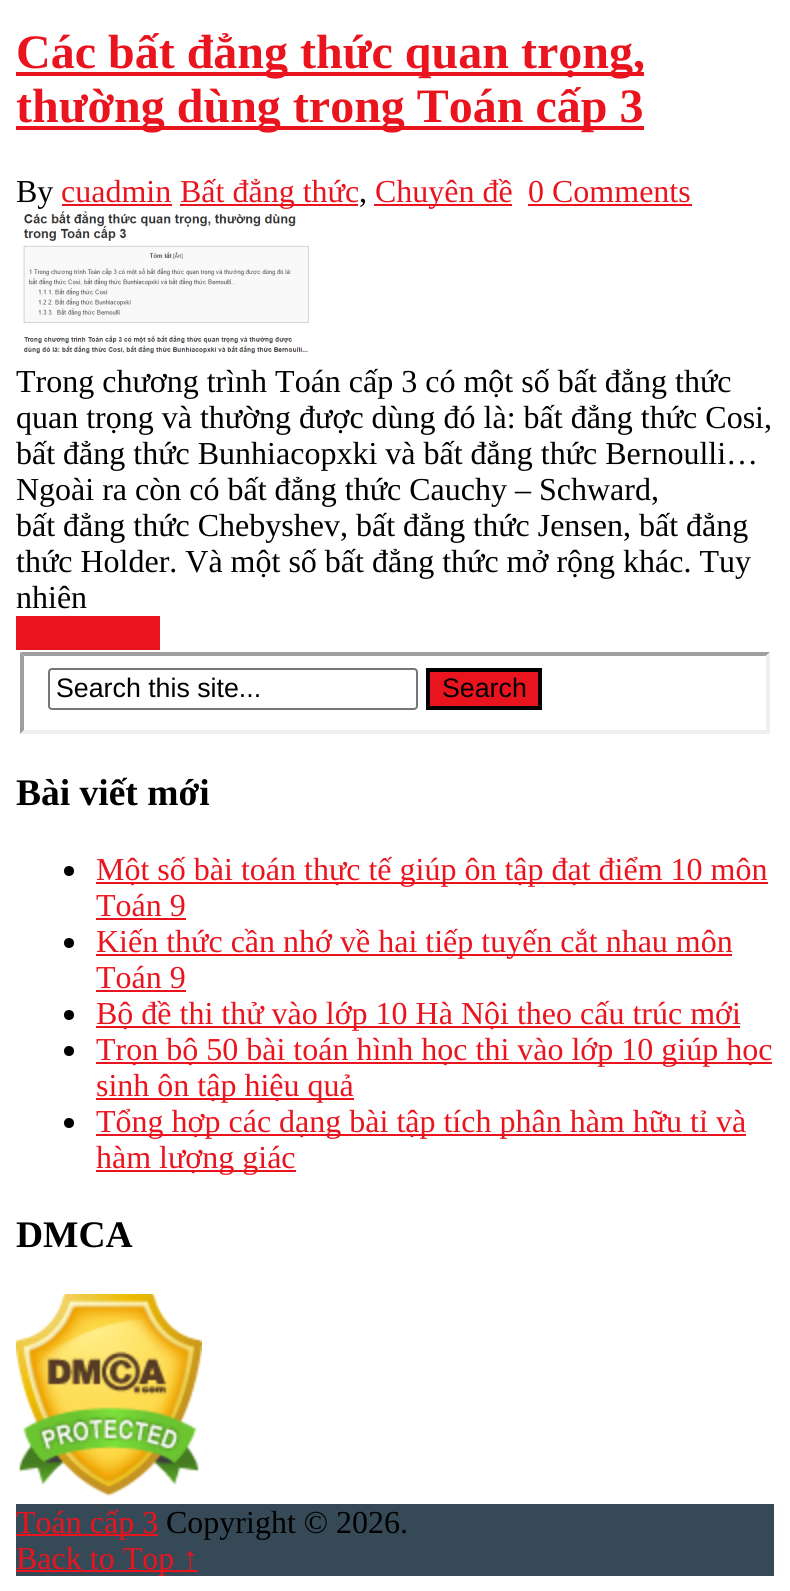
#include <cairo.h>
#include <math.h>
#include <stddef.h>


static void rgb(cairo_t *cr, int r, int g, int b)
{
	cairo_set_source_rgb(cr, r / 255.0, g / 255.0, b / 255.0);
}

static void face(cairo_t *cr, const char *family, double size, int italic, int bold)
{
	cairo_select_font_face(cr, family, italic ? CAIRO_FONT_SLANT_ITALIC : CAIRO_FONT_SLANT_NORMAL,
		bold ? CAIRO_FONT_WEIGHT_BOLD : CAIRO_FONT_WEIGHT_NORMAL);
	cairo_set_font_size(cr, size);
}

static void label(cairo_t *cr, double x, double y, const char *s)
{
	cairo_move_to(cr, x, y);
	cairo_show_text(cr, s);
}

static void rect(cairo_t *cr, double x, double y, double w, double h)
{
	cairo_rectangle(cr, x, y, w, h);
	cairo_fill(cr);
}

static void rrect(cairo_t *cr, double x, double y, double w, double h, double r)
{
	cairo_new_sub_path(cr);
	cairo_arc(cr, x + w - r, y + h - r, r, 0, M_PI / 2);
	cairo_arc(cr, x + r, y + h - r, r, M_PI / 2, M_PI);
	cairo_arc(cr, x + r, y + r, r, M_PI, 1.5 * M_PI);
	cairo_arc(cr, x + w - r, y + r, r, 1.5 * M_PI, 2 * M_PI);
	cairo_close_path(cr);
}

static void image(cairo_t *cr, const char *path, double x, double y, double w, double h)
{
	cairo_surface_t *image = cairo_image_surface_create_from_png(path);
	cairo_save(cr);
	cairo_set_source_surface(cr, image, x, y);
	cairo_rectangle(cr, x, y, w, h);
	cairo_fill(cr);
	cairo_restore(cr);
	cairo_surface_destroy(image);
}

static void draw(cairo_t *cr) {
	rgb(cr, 255, 255, 255);
	cairo_paint(cr);
	rgb(cr, 234, 20, 31);
	rect(cr, 16, 72, 628, 4);
	face(cr, "Liberation Serif", 48, 0, 1);
	label(cr, 16, 68, "Các bất đẳng thức quan trọng,");
	rect(cr, 16, 126, 628, 4);
	label(cr, 16, 122, "thường dùng trong Toán cấp 3");
	face(cr, "Liberation Serif", 32, 0, 0);
	rgb(cr, 0, 0, 0);
	label(cr, 16, 202, "By");
	rgb(cr, 234, 20, 31);
	rect(cr, 62, 204, 110, 2);
	label(cr, 61, 202, "cuadmin");
	rect(cr, 180, 204, 178, 2);
	label(cr, 180, 202, "Bất đẳng thức");
	rgb(cr, 0, 0, 0);
	label(cr, 359, 202, ",");
	rgb(cr, 234, 20, 31);
	rect(cr, 374, 204, 138, 2);
	label(cr, 375, 202, "Chuyên đề");
	label(cr, 528, 202, "0 Comments");
	rect(cr, 528, 204, 164, 2);
	image(cr, "image0.png", 23, 211, 286, 143);
	rgb(cr, 0, 0, 0);
	label(cr, 16, 392, "Trong chương trình Toán cấp 3 có một số bất đẳng thức");
	label(cr, 16, 428, "quan trọng và thường được dùng đó là: bất đẳng thức Cosi,");
	label(cr, 16, 464, "bất đẳng thức Bunhiacopxki và bất đẳng thức Bernoulli…");
	label(cr, 16, 500, "Ngoài ra còn có bất đẳng thức Cauchy – Schward,");
	label(cr, 16, 536, "bất đẳng thức Chebyshev, bất đẳng thức Jensen, bất đẳng");
	label(cr, 16, 572, "thức Holder. Và một số bất đẳng thức mở rộng khác. Tuy");
	label(cr, 16, 608, "nhiên");
	rgb(cr, 234, 20, 31);
	rect(cr, 16, 616, 144, 34);
	rgb(cr, 159, 159, 159);
	cairo_new_path(cr);
	cairo_move_to(cr, 20, 652);
	cairo_line_to(cr, 770, 652);
	cairo_line_to(cr, 766, 656);
	cairo_line_to(cr, 24, 656);
	cairo_close_path(cr);
	cairo_fill(cr);
	rgb(cr, 239, 239, 239);
	cairo_new_path(cr);
	cairo_move_to(cr, 770, 652);
	cairo_line_to(cr, 770, 734);
	cairo_line_to(cr, 766, 730);
	cairo_line_to(cr, 766, 656);
	cairo_close_path(cr);
	cairo_fill(cr);
	cairo_new_path(cr);
	cairo_move_to(cr, 770, 734);
	cairo_line_to(cr, 20, 734);
	cairo_line_to(cr, 24, 730);
	cairo_line_to(cr, 766, 730);
	cairo_close_path(cr);
	cairo_fill(cr);
	rgb(cr, 159, 159, 159);
	cairo_new_path(cr);
	cairo_move_to(cr, 20, 734);
	cairo_line_to(cr, 20, 652);
	cairo_line_to(cr, 24, 656);
	cairo_line_to(cr, 24, 730);
	cairo_close_path(cr);
	cairo_fill(cr);
	rrect(cr, 49, 669, 368, 40, 3);
	rgb(cr, 118, 118, 118);
	cairo_stroke(cr);
	face(cr, "Liberation Sans", 26.75, 0, 0);
	rgb(cr, 0, 0, 0);
	label(cr, 56, 697, "Search this site...");
	rgb(cr, 234, 20, 31);
	cairo_rectangle(cr, 428, 670, 112, 38);
	cairo_fill_preserve(cr);
	rgb(cr, 0, 0, 0);
	cairo_set_line_width(cr, 4);
	cairo_stroke(cr);
	label(cr, 442, 697, "Search");
	face(cr, "Liberation Serif", 37.5, 0, 1);
	label(cr, 16, 805, "Bài viết mới");
	cairo_new_path(cr);
	cairo_arc(cr, 69, 871, 5, 0, 2 * M_PI);
	cairo_fill(cr);
	rgb(cr, 234, 20, 31);
	rect(cr, 96, 882, 672, 2);
	face(cr, "Liberation Serif", 32, 0, 0);
	label(cr, 96, 880, "Một số bài toán thực tế giúp ôn tập đạt điểm 10 môn");
	label(cr, 96, 916, "Toán 9");
	rect(cr, 96, 918, 90, 2);
	rgb(cr, 0, 0, 0);
	cairo_new_path(cr);
	cairo_arc(cr, 69, 943, 5, 0, 2 * M_PI);
	cairo_fill(cr);
	rgb(cr, 234, 20, 31);
	rect(cr, 96, 954, 636, 2);
	label(cr, 96, 952, "Kiến thức cần nhớ về hai tiếp tuyến cắt nhau môn");
	label(cr, 96, 988, "Toán 9");
	rect(cr, 96, 990, 90, 2);
	rgb(cr, 0, 0, 0);
	cairo_new_path(cr);
	cairo_arc(cr, 69, 1015, 5, 0, 2 * M_PI);
	cairo_fill(cr);
	rgb(cr, 234, 20, 31);
	rect(cr, 96, 1026, 644, 2);
	label(cr, 96, 1024, "Bộ đề thi thử vào lớp 10 Hà Nội theo cấu trúc mới");
	rgb(cr, 0, 0, 0);
	cairo_new_path(cr);
	cairo_arc(cr, 69, 1051, 5, 0, 2 * M_PI);
	cairo_fill(cr);
	rgb(cr, 234, 20, 31);
	rect(cr, 96, 1062, 676, 2);
	label(cr, 96, 1060, "Trọn bộ 50 bài toán hình học thi vào lớp 10 giúp học");
	rect(cr, 96, 1098, 258, 2);
	label(cr, 96, 1096, "sinh ôn tập hiệu quả");
	rgb(cr, 0, 0, 0);
	cairo_new_path(cr);
	cairo_arc(cr, 69, 1123, 5, 0, 2 * M_PI);
	cairo_fill(cr);
	rgb(cr, 234, 20, 31);
	rect(cr, 96, 1134, 650, 2);
	label(cr, 96, 1132, "Tổng hợp các dạng bài tập tích phân hàm hữu tỉ và");
	rect(cr, 96, 1170, 200, 2);
	label(cr, 96, 1168, "hàm lượng giác");
	face(cr, "Liberation Serif", 37.5, 0, 1);
	rgb(cr, 0, 0, 0);
	label(cr, 16, 1247, "DMCA");
	image(cr, "image1.png", 16, 1294, 186, 202);
	rgb(cr, 54, 73, 86);
	rect(cr, 16, 1504, 758, 72);
	rgb(cr, 234, 20, 31);
	rect(cr, 16, 1534, 142, 2);
	face(cr, "Liberation Serif", 32, 0, 0);
	label(cr, 16, 1533, "Toán cấp 3");
	rgb(cr, 0, 0, 0);
	label(cr, 166, 1533, "Copyright © 2026.");
	rgb(cr, 234, 20, 31);
	rect(cr, 16, 1570, 182, 2);
	label(cr, 16, 1569, "Back to Top ↑");
}

int main(void) {
	cairo_surface_t *surface = cairo_image_surface_create(CAIRO_FORMAT_RGB24, 790, 1591);
	cairo_t *cr = cairo_create(surface);
	cairo_font_options_t *options = cairo_font_options_create();
	cairo_font_options_set_hint_metrics(options, CAIRO_HINT_METRICS_OFF);
	cairo_font_options_set_hint_style(options, CAIRO_HINT_STYLE_NONE);
	cairo_set_font_options(cr, options);
	cairo_set_miter_limit(cr, 4);
	draw(cr);
	cairo_surface_write_to_png(surface, "render.png");
	cairo_font_options_destroy(options);
	cairo_destroy(cr);
	cairo_surface_destroy(surface);
	return 0;
}
